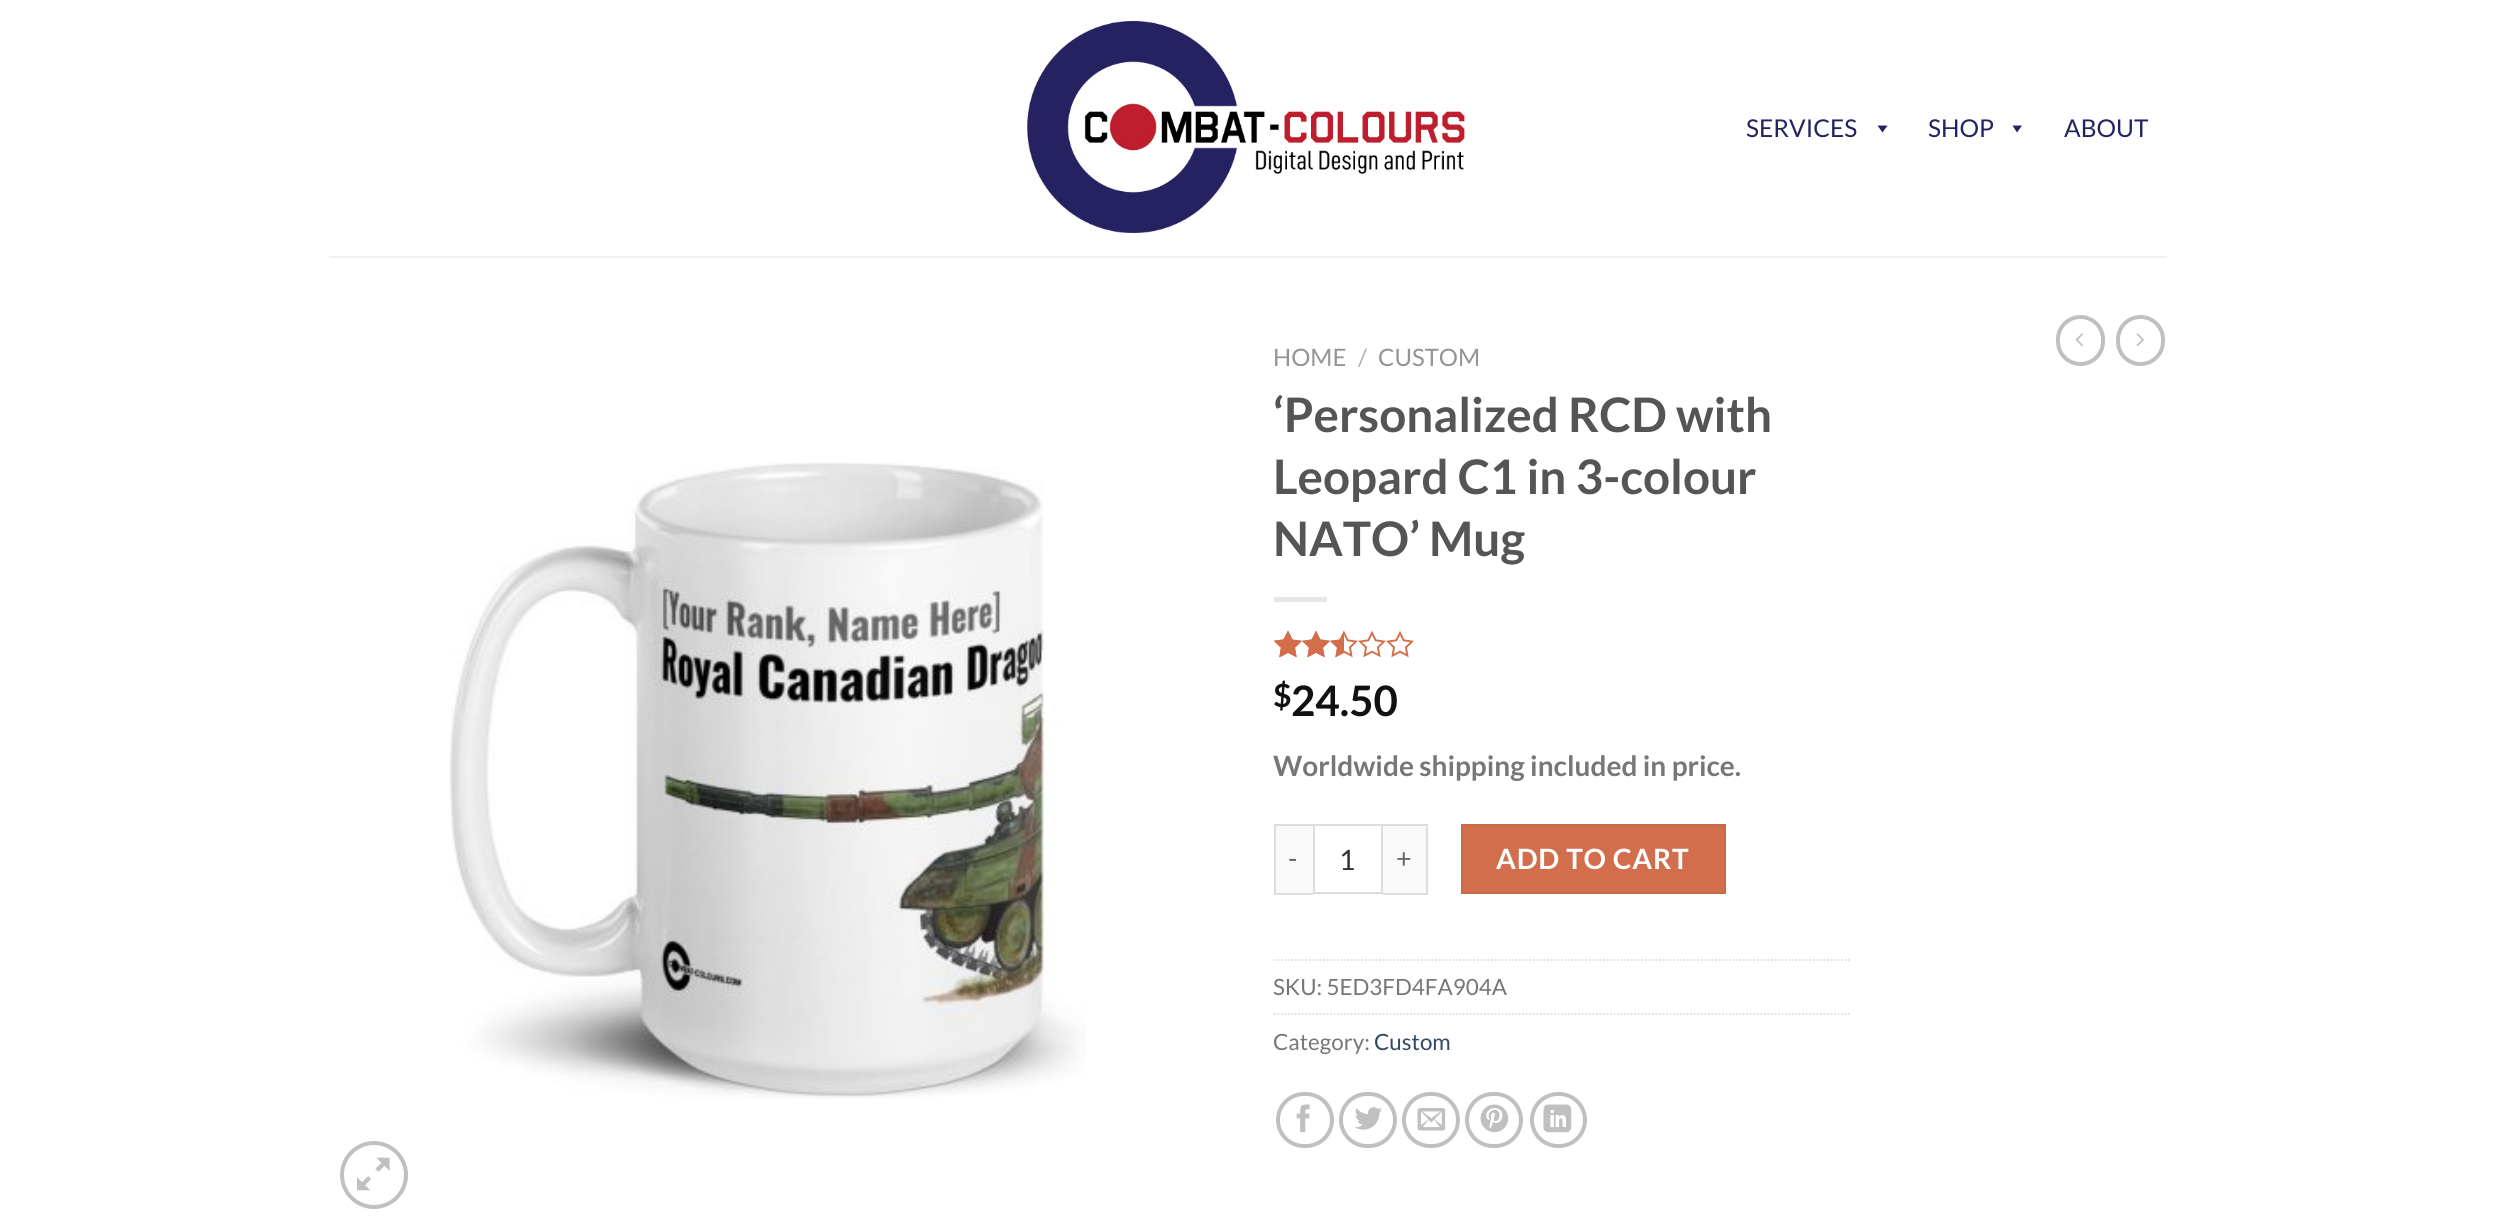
#include <cairo.h>
#include <math.h>
#include <stddef.h>


static void rgb(cairo_t *cr, int r, int g, int b)
{
	cairo_set_source_rgb(cr, r / 255.0, g / 255.0, b / 255.0);
}

static void face(cairo_t *cr, const char *family, double size, int italic, int bold)
{
	cairo_select_font_face(cr, family, italic ? CAIRO_FONT_SLANT_ITALIC : CAIRO_FONT_SLANT_NORMAL,
		bold ? CAIRO_FONT_WEIGHT_BOLD : CAIRO_FONT_WEIGHT_NORMAL);
	cairo_set_font_size(cr, size);
}

static void label(cairo_t *cr, double x, double y, const char *s)
{
	cairo_move_to(cr, x, y);
	cairo_show_text(cr, s);
}

static void tracked(cairo_t *cr, double x, double y, const char *s, double letter, double word)
{
	cairo_move_to(cr, x, y);
	while (*s) {
		char ch[5] = {0};
		int n = 0;
		do ch[n++] = *s++; while ((*s & 0xC0) == 0x80);
		cairo_show_text(cr, ch);
		cairo_rel_move_to(cr, letter + word * (*ch == ' '), 0);
	}
}

static void rect(cairo_t *cr, double x, double y, double w, double h)
{
	cairo_rectangle(cr, x, y, w, h);
	cairo_fill(cr);
}

static void rrect(cairo_t *cr, double x, double y, double w, double h, double r)
{
	cairo_new_sub_path(cr);
	cairo_arc(cr, x + w - r, y + h - r, r, 0, M_PI / 2);
	cairo_arc(cr, x + r, y + h - r, r, M_PI / 2, M_PI);
	cairo_arc(cr, x + r, y + r, r, M_PI, 1.5 * M_PI);
	cairo_arc(cr, x + w - r, y + r, r, 1.5 * M_PI, 2 * M_PI);
	cairo_close_path(cr);
}

static void image(cairo_t *cr, const char *path, double x, double y, double w, double h)
{
	cairo_surface_t *image = cairo_image_surface_create_from_png(path);
	cairo_save(cr);
	cairo_set_source_surface(cr, image, x, y);
	cairo_rectangle(cr, x, y, w, h);
	cairo_fill(cr);
	cairo_restore(cr);
	cairo_surface_destroy(image);
}

static void draw(cairo_t *cr) {
	rgb(cr, 255, 255, 255);
	cairo_paint(cr);
	image(cr, "image0.png", 1027, 21, 438, 212);
	face(cr, "Lato", 24.5, 0, 0);
	rgb(cr, 38, 34, 97);
	label(cr, 1746, 137, "SERVICES");
	cairo_new_path(cr);
	cairo_move_to(cr, 1887.5, 125.5);
	cairo_line_to(cr, 1882.5, 132.5);
	cairo_line_to(cr, 1877.5, 125.5);
	cairo_close_path(cr);
	cairo_fill(cr);
	label(cr, 1928, 137, "SHOP");
	cairo_new_path(cr);
	cairo_move_to(cr, 2022, 125.5);
	cairo_line_to(cr, 2017, 132.5);
	cairo_line_to(cr, 2012.5, 125.5);
	cairo_close_path(cr);
	cairo_fill(cr);
	label(cr, 2064, 137, "ABOUT");
	rgb(cr, 241, 241, 241);
	rect(cr, 329, 256, 1838, 2);
	rrect(cr, 2058, 317, 45, 47, 22.5);
	rgb(cr, 192, 192, 192);
	cairo_set_line_width(cr, 4);
	cairo_stroke(cr);
	image(cr, "image1.png", 2075, 333, 8, 14);
	rrect(cr, 2118, 317, 45, 47, 22.5);
	cairo_stroke(cr);
	image(cr, "image2.png", 2136, 333, 8, 14);
	image(cr, "image3.png", 449, 462, 637, 637);
	cairo_arc(cr, 374, 1175, 32, 0, 2 * M_PI);
	cairo_stroke(cr);
	image(cr, "image4.png", 357, 1157, 33, 34);
	face(cr, "Lato", 24, 0, 0);
	rgb(cr, 148, 148, 148);
	label(cr, 1273, 366, "HOME");
	rgb(cr, 178, 178, 178);
	label(cr, 1358, 366, "/");
	rgb(cr, 148, 148, 148);
	label(cr, 1378, 366, "CUSTOM");
	face(cr, "Lato", 47.6, 0, 1);
	rgb(cr, 85, 85, 85);
	label(cr, 1273, 432, "‘Personalized RCD with");
	label(cr, 1273, 494, "Leopard C1 in 3-colour");
	label(cr, 1273, 556, "NATO’ Mug");
	rgb(cr, 230, 230, 230);
	rect(cr, 1274, 597, 53, 5);
	image(cr, "image5.png", 1274, 630, 140, 28);
	image(cr, "image6.png", 1274, 630, 70, 28);
	image(cr, "image7.png", 1274, 630, 18, 28);
	face(cr, "Lato", 32, 0, 1);
	rgb(cr, 17, 17, 17);
	label(cr, 1273, 707, "$");
	face(cr, "Lato", 42, 0, 1);
	label(cr, 1291, 716, "24.50");
	face(cr, "Lato", 28, 0, 1);
	rgb(cr, 119, 119, 119);
	label(cr, 1273, 776, "Worldwide shipping included in price.");
	rgb(cr, 249, 249, 249);
	rect(cr, 1276, 826, 37, 67);
	rgb(cr, 221, 221, 221);
	rect(cr, 1274, 824, 39, 2);
	rect(cr, 1274, 893, 39, 2);
	rect(cr, 1274, 824, 2, 70);
	face(cr, "Lato", 27, 0, 0);
	rgb(cr, 102, 102, 102);
	tracked(cr, 1288, 868, "-", 1, 0);
	cairo_rectangle(cr, 1314, 825, 68, 68);
	rgb(cr, 221, 221, 221);
	cairo_set_line_width(cr, 2);
	cairo_stroke(cr);
	face(cr, "Lato", 28, 0, 0);
	rgb(cr, 51, 51, 51);
	label(cr, 1339, 870, "1");
	rgb(cr, 249, 249, 249);
	rect(cr, 1383, 826, 43, 67);
	rgb(cr, 221, 221, 221);
	rect(cr, 1383, 824, 45, 2);
	rect(cr, 1426, 824, 2, 70);
	rect(cr, 1383, 893, 45, 2);
	face(cr, "Lato", 27, 0, 0);
	rgb(cr, 102, 102, 102);
	tracked(cr, 1396, 868, "+", 1, 0);
	rgb(cr, 210, 110, 75);
	cairo_rectangle(cr, 1462, 825, 263, 68);
	cairo_fill_preserve(cr);
	rgb(cr, 200, 105, 71);
	cairo_stroke(cr);
	face(cr, "Lato", 28, 0, 1);
	rgb(cr, 255, 255, 255);
	tracked(cr, 1496, 869, "ADD TO CART", 0.75, 0);
	cairo_new_path(cr);
	cairo_move_to(cr, 1274, 960);
	cairo_line_to(cr, 1851.5, 960);
	rgb(cr, 221, 221, 221);
	cairo_set_line_width(cr, 1.8);
	cairo_set_dash(cr, (double[]){1.75, 1.75}, 2, 0);
	cairo_stroke(cr);
	face(cr, "Lato", 22.4, 0, 0);
	rgb(cr, 119, 119, 119);
	label(cr, 1273, 995, "SKU: 5ED3FD4FA904A");
	cairo_new_path(cr);
	cairo_move_to(cr, 1274, 1014);
	cairo_line_to(cr, 1851.5, 1014);
	rgb(cr, 221, 221, 221);
	cairo_stroke(cr);
	rgb(cr, 119, 119, 119);
	label(cr, 1273, 1050, "Category:");
	rgb(cr, 51, 72, 98);
	label(cr, 1374, 1050, "Custom");
	rrect(cr, 1278, 1094, 54, 52, 26);
	rgb(cr, 192, 192, 192);
	cairo_set_line_width(cr, 4);
	cairo_set_dash(cr, NULL, 0, 0);
	cairo_stroke(cr);
	image(cr, "image8.png", 1296, 1104, 14, 29);
	rrect(cr, 1341, 1094, 54, 52, 26);
	cairo_stroke(cr);
	image(cr, "image9.png", 1355, 1107, 27, 23);
	rrect(cr, 1404, 1094, 54, 52, 26);
	cairo_stroke(cr);
	image(cr, "image10.png", 1417, 1108, 29, 23);
	rrect(cr, 1467, 1094, 54, 52, 26);
	cairo_stroke(cr);
	image(cr, "image11.png", 1480, 1104, 29, 29);
	rrect(cr, 1532, 1094, 53, 52, 26);
	cairo_stroke(cr);
	image(cr, "image12.png", 1543, 1104, 29, 29);
}

int main(void) {
	cairo_surface_t *surface = cairo_image_surface_create(CAIRO_FORMAT_RGB24, 2493, 1231);
	cairo_t *cr = cairo_create(surface);
	cairo_font_options_t *options = cairo_font_options_create();
	cairo_font_options_set_hint_metrics(options, CAIRO_HINT_METRICS_OFF);
	cairo_font_options_set_hint_style(options, CAIRO_HINT_STYLE_NONE);
	cairo_set_font_options(cr, options);
	cairo_set_miter_limit(cr, 4);
	draw(cr);
	cairo_surface_write_to_png(surface, "render.png");
	cairo_font_options_destroy(options);
	cairo_destroy(cr);
	cairo_surface_destroy(surface);
	return 0;
}
